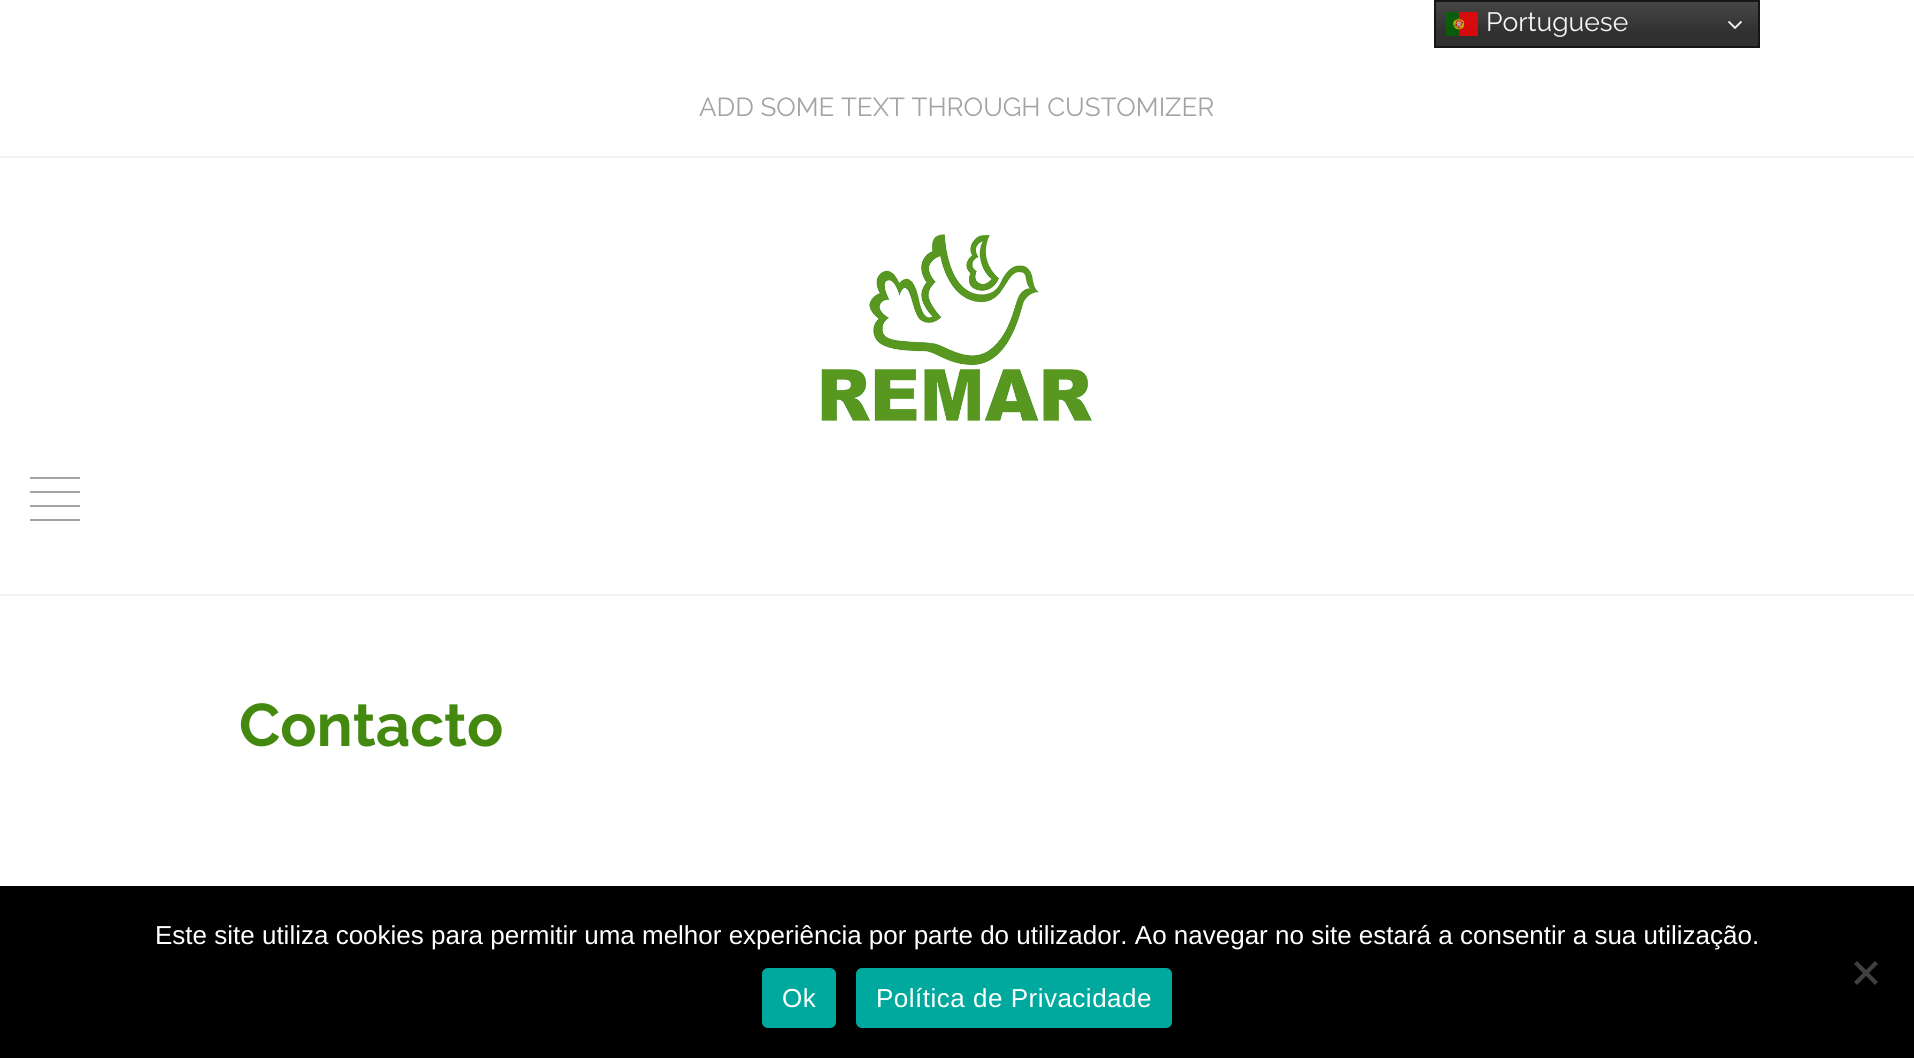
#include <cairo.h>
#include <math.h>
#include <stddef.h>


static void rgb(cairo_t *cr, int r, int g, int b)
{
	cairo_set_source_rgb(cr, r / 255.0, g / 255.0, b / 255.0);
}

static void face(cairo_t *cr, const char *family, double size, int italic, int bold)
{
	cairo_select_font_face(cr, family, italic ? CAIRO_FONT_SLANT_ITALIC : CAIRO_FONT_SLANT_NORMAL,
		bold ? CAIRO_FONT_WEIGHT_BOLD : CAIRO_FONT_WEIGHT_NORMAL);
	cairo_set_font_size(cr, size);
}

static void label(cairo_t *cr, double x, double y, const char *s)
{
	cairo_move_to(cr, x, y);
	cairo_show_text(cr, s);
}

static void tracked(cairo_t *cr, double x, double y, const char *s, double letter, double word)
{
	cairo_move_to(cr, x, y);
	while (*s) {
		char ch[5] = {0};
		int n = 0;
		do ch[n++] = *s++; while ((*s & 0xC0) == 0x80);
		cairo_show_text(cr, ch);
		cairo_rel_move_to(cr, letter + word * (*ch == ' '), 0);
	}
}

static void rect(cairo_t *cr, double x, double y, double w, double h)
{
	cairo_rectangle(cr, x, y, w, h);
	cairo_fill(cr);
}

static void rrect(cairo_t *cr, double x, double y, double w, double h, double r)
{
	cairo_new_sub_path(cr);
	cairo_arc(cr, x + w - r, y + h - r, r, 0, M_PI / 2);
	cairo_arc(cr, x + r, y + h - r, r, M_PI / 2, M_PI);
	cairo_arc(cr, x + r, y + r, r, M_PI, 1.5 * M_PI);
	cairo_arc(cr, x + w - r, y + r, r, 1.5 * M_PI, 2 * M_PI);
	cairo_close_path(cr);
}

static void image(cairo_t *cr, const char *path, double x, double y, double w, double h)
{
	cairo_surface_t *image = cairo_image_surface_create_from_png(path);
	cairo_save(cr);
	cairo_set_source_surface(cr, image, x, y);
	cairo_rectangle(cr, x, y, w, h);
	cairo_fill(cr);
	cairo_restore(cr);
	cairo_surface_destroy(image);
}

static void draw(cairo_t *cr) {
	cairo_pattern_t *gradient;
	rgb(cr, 255, 255, 255);
	cairo_paint(cr);
	gradient = cairo_pattern_create_linear(1597, 0, 1597, 48);
	cairo_pattern_add_color_stop_rgba(gradient, 0, 0.278, 0.278, 0.278, 1);
	cairo_pattern_add_color_stop_rgba(gradient, 0.7, 0.188, 0.188, 0.188, 1);
	cairo_set_source(cr, gradient);
	cairo_pattern_destroy(gradient);
	rect(cr, 1436, 2, 322, 44);
	cairo_rectangle(cr, 1435, 1, 324, 46);
	rgb(cr, 22, 22, 22);
	cairo_stroke(cr);
	image(cr, "image0.png", 1446, 12, 32, 24);
	face(cr, "Raleway", 26.5, 0, 0);
	rgb(cr, 247, 247, 247);
	label(cr, 1486, 31, "Portuguese");
	image(cr, "image1.png", 1728, 21, 14, 8);
	face(cr, "Raleway", 26, 0, 0);
	rgb(cr, 163, 163, 163);
	label(cr, 699, 116, "ADD SOME TEXT THROUGH CUSTOMIZER");
	rgb(cr, 241, 241, 241);
	rect(cr, 0, 156, 1914, 2);
	rect(cr, 0, 594, 1914, 2);
	image(cr, "image2.png", 821, 234, 271, 187);
	rgb(cr, 163, 163, 163);
	rect(cr, 30, 477, 50, 2);
	rect(cr, 30, 491, 50, 2);
	rect(cr, 30, 505, 50, 2);
	rect(cr, 30, 519, 50, 2);
	face(cr, "Raleway", 60, 0, 1);
	rgb(cr, 67, 137, 16);
	label(cr, 239, 746, "Contacto");
	rgb(cr, 0, 0, 0);
	rect(cr, 0, 886, 1914, 172);
	face(cr, "Liberation Sans", 26, 0, 0);
	rgb(cr, 255, 255, 255);
	label(cr, 155, 944, "Este site utiliza cookies para permitir uma melhor experiência por parte do utilizador. Ao navegar no site estará a consentir a sua utilização.");
	rgb(cr, 64, 64, 64);
	cairo_new_path(cr);
	cairo_move_to(cr, 1875, 961);
	cairo_line_to(cr, 1878, 964);
	cairo_line_to(cr, 1857, 985);
	cairo_line_to(cr, 1854, 982);
	cairo_close_path(cr);
	cairo_fill(cr);
	cairo_new_path(cr);
	cairo_move_to(cr, 1854, 964);
	cairo_line_to(cr, 1857, 961);
	cairo_line_to(cr, 1878, 982);
	cairo_line_to(cr, 1875, 985);
	cairo_close_path(cr);
	cairo_fill(cr);
	rgb(cr, 0, 169, 157);
	rrect(cr, 762, 968, 74, 60, 6);
	cairo_fill(cr);
	rgb(cr, 255, 255, 255);
	tracked(cr, 782, 1007, "Ok", 0.5, 0);
	rgb(cr, 0, 169, 157);
	rrect(cr, 856, 968, 316, 60, 6);
	cairo_fill(cr);
	rgb(cr, 255, 255, 255);
	tracked(cr, 876, 1007, "Política de Privacidade", 0.5, 0);
}

int main(void) {
	cairo_surface_t *surface = cairo_image_surface_create(CAIRO_FORMAT_RGB24, 1914, 1058);
	cairo_t *cr = cairo_create(surface);
	cairo_font_options_t *options = cairo_font_options_create();
	cairo_font_options_set_hint_metrics(options, CAIRO_HINT_METRICS_OFF);
	cairo_font_options_set_hint_style(options, CAIRO_HINT_STYLE_NONE);
	cairo_set_font_options(cr, options);
	cairo_set_miter_limit(cr, 4);
	draw(cr);
	cairo_surface_write_to_png(surface, "render.png");
	cairo_font_options_destroy(options);
	cairo_destroy(cr);
	cairo_surface_destroy(surface);
	return 0;
}
